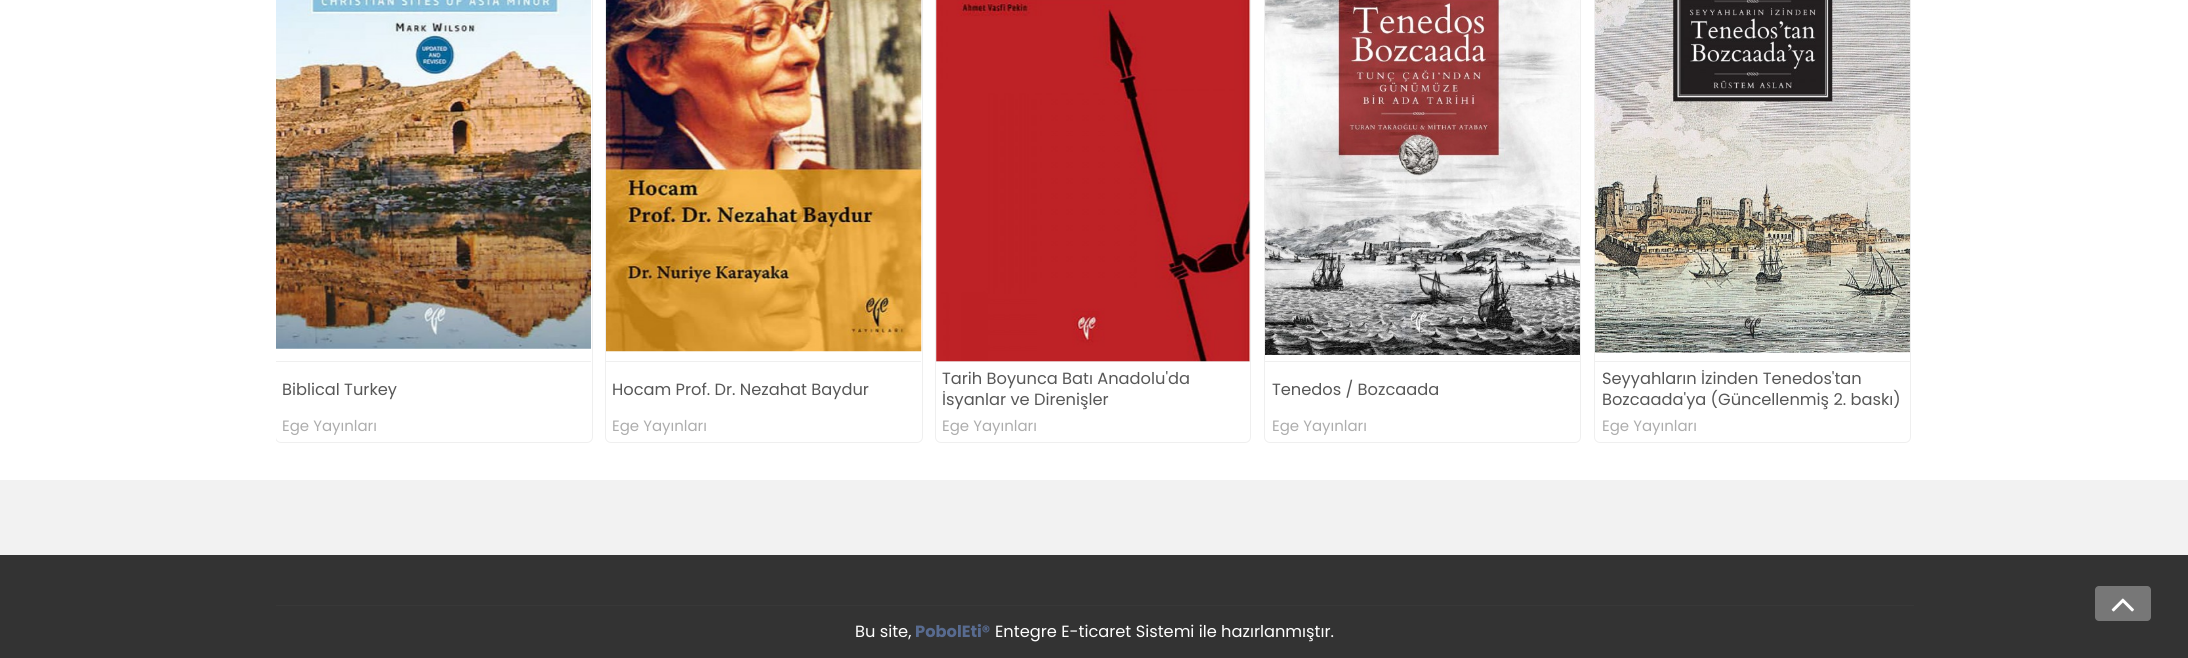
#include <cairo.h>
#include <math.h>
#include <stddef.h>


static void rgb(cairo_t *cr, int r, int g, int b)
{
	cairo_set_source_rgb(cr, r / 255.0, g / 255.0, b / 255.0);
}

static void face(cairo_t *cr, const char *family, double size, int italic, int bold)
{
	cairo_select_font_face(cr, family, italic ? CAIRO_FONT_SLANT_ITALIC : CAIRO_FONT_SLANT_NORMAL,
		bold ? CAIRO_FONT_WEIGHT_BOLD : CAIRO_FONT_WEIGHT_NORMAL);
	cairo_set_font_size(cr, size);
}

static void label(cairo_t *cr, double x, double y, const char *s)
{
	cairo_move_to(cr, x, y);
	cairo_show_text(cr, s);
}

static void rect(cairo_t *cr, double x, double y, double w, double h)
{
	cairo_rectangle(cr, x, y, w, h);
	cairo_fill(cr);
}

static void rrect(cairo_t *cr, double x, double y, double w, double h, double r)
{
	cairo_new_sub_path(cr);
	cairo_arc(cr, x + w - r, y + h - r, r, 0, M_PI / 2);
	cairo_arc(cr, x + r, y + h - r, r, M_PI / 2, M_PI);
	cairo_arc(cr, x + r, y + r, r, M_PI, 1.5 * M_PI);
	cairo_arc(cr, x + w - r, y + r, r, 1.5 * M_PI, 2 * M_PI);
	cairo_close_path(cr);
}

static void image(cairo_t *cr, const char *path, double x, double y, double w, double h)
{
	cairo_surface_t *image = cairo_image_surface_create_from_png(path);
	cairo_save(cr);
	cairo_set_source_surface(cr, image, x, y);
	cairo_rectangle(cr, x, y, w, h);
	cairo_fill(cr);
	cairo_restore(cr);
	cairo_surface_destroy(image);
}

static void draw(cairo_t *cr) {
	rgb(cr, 255, 255, 255);
	cairo_paint(cr);
	cairo_save(cr);
	cairo_rectangle(cr, 276, 0, 1638, 443);
	cairo_clip(cr);
	rrect(cr, 275.5, -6.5, 317, 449, 5.5);
	rgb(cr, 239, 239, 239);
	cairo_set_line_width(cr, 1);
	cairo_stroke(cr);
	cairo_restore(cr);
	rgb(cr, 239, 239, 239);
	rect(cr, 276, 361, 315, 1);
	image(cr, "image0.png", 276, 0, 315, 349);
	face(cr, "Poppins", 16.25, 0, 0);
	rgb(cr, 87, 87, 87);
	label(cr, 282, 395, "Biblical Turkey");
	face(cr, "Poppins", 15, 0, 0);
	rgb(cr, 173, 173, 173);
	label(cr, 282, 431, "Ege Yayınları");
	rrect(cr, 605.5, -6.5, 317, 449, 5.5);
	rgb(cr, 239, 239, 239);
	cairo_set_line_width(cr, 1);
	cairo_stroke(cr);
	rect(cr, 606, 361, 315, 1);
	image(cr, "image1.png", 606, 0, 316, 352);
	face(cr, "Poppins", 16.25, 0, 0);
	rgb(cr, 87, 87, 87);
	label(cr, 612, 395, "Hocam Prof. Dr. Nezahat Baydur");
	face(cr, "Poppins", 15, 0, 0);
	rgb(cr, 173, 173, 173);
	label(cr, 612, 431, "Ege Yayınları");
	rrect(cr, 935.5, -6.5, 315, 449, 5.5);
	rgb(cr, 239, 239, 239);
	cairo_stroke(cr);
	rect(cr, 936, 361, 314, 1);
	image(cr, "image2.png", 936, 0, 314, 362);
	face(cr, "Poppins", 16.25, 0, 0);
	rgb(cr, 87, 87, 87);
	label(cr, 942, 384, "Tarih Boyunca Batı Anadolu'da");
	label(cr, 942, 405, "İsyanlar ve Direnişler");
	face(cr, "Poppins", 15, 0, 0);
	rgb(cr, 173, 173, 173);
	label(cr, 942, 431, "Ege Yayınları");
	rrect(cr, 1264.5, -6.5, 316, 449, 5.5);
	rgb(cr, 239, 239, 239);
	cairo_stroke(cr);
	rect(cr, 1265, 361, 315, 1);
	image(cr, "image3.png", 1265, 0, 315, 355);
	face(cr, "Poppins", 16.25, 0, 0);
	rgb(cr, 87, 87, 87);
	label(cr, 1272, 395, "Tenedos / Bozcaada");
	face(cr, "Poppins", 15, 0, 0);
	rgb(cr, 173, 173, 173);
	label(cr, 1272, 431, "Ege Yayınları");
	rrect(cr, 1594.5, -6.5, 316, 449, 5.5);
	rgb(cr, 239, 239, 239);
	cairo_stroke(cr);
	rect(cr, 1595, 361, 315, 1);
	image(cr, "image4.png", 1595, 0, 315, 353);
	face(cr, "Poppins", 16.25, 0, 0);
	rgb(cr, 87, 87, 87);
	label(cr, 1602, 384, "Seyyahların İzinden Tenedos'tan");
	label(cr, 1602, 405, "Bozcaada'ya (Güncellenmiş 2. baskı)");
	face(cr, "Poppins", 15, 0, 0);
	rgb(cr, 173, 173, 173);
	label(cr, 1602, 431, "Ege Yayınları");
	rgb(cr, 51, 51, 51);
	rect(cr, 0, 555, 2188, 103);
	rgb(cr, 242, 242, 242);
	rect(cr, 0, 480, 2188, 75);
	rgb(cr, 56, 56, 56);
	rect(cr, 276, 605, 1638, 1);
	rgb(cr, 119, 119, 119);
	rrect(cr, 2095, 586, 56, 35, 4);
	cairo_fill(cr);
	image(cr, "image5.png", 2111, 598, 23, 14);
	face(cr, "Poppins", 16.25, 0, 0);
	rgb(cr, 255, 255, 255);
	label(cr, 855, 637, "Bu site,");
	face(cr, "Poppins", 16.25, 0, 1);
	rgb(cr, 88, 107, 144);
	label(cr, 915, 637, "PobolEti®");
	face(cr, "Poppins", 16.25, 0, 0);
	rgb(cr, 255, 255, 255);
	label(cr, 995, 637, "Entegre E-ticaret Sistemi ile hazırlanmıştır.");
}

int main(void) {
	cairo_surface_t *surface = cairo_image_surface_create(CAIRO_FORMAT_RGB24, 2188, 658);
	cairo_t *cr = cairo_create(surface);
	cairo_font_options_t *options = cairo_font_options_create();
	cairo_font_options_set_hint_metrics(options, CAIRO_HINT_METRICS_OFF);
	cairo_font_options_set_hint_style(options, CAIRO_HINT_STYLE_NONE);
	cairo_set_font_options(cr, options);
	cairo_set_miter_limit(cr, 4);
	draw(cr);
	cairo_surface_write_to_png(surface, "render.png");
	cairo_font_options_destroy(options);
	cairo_destroy(cr);
	cairo_surface_destroy(surface);
	return 0;
}
